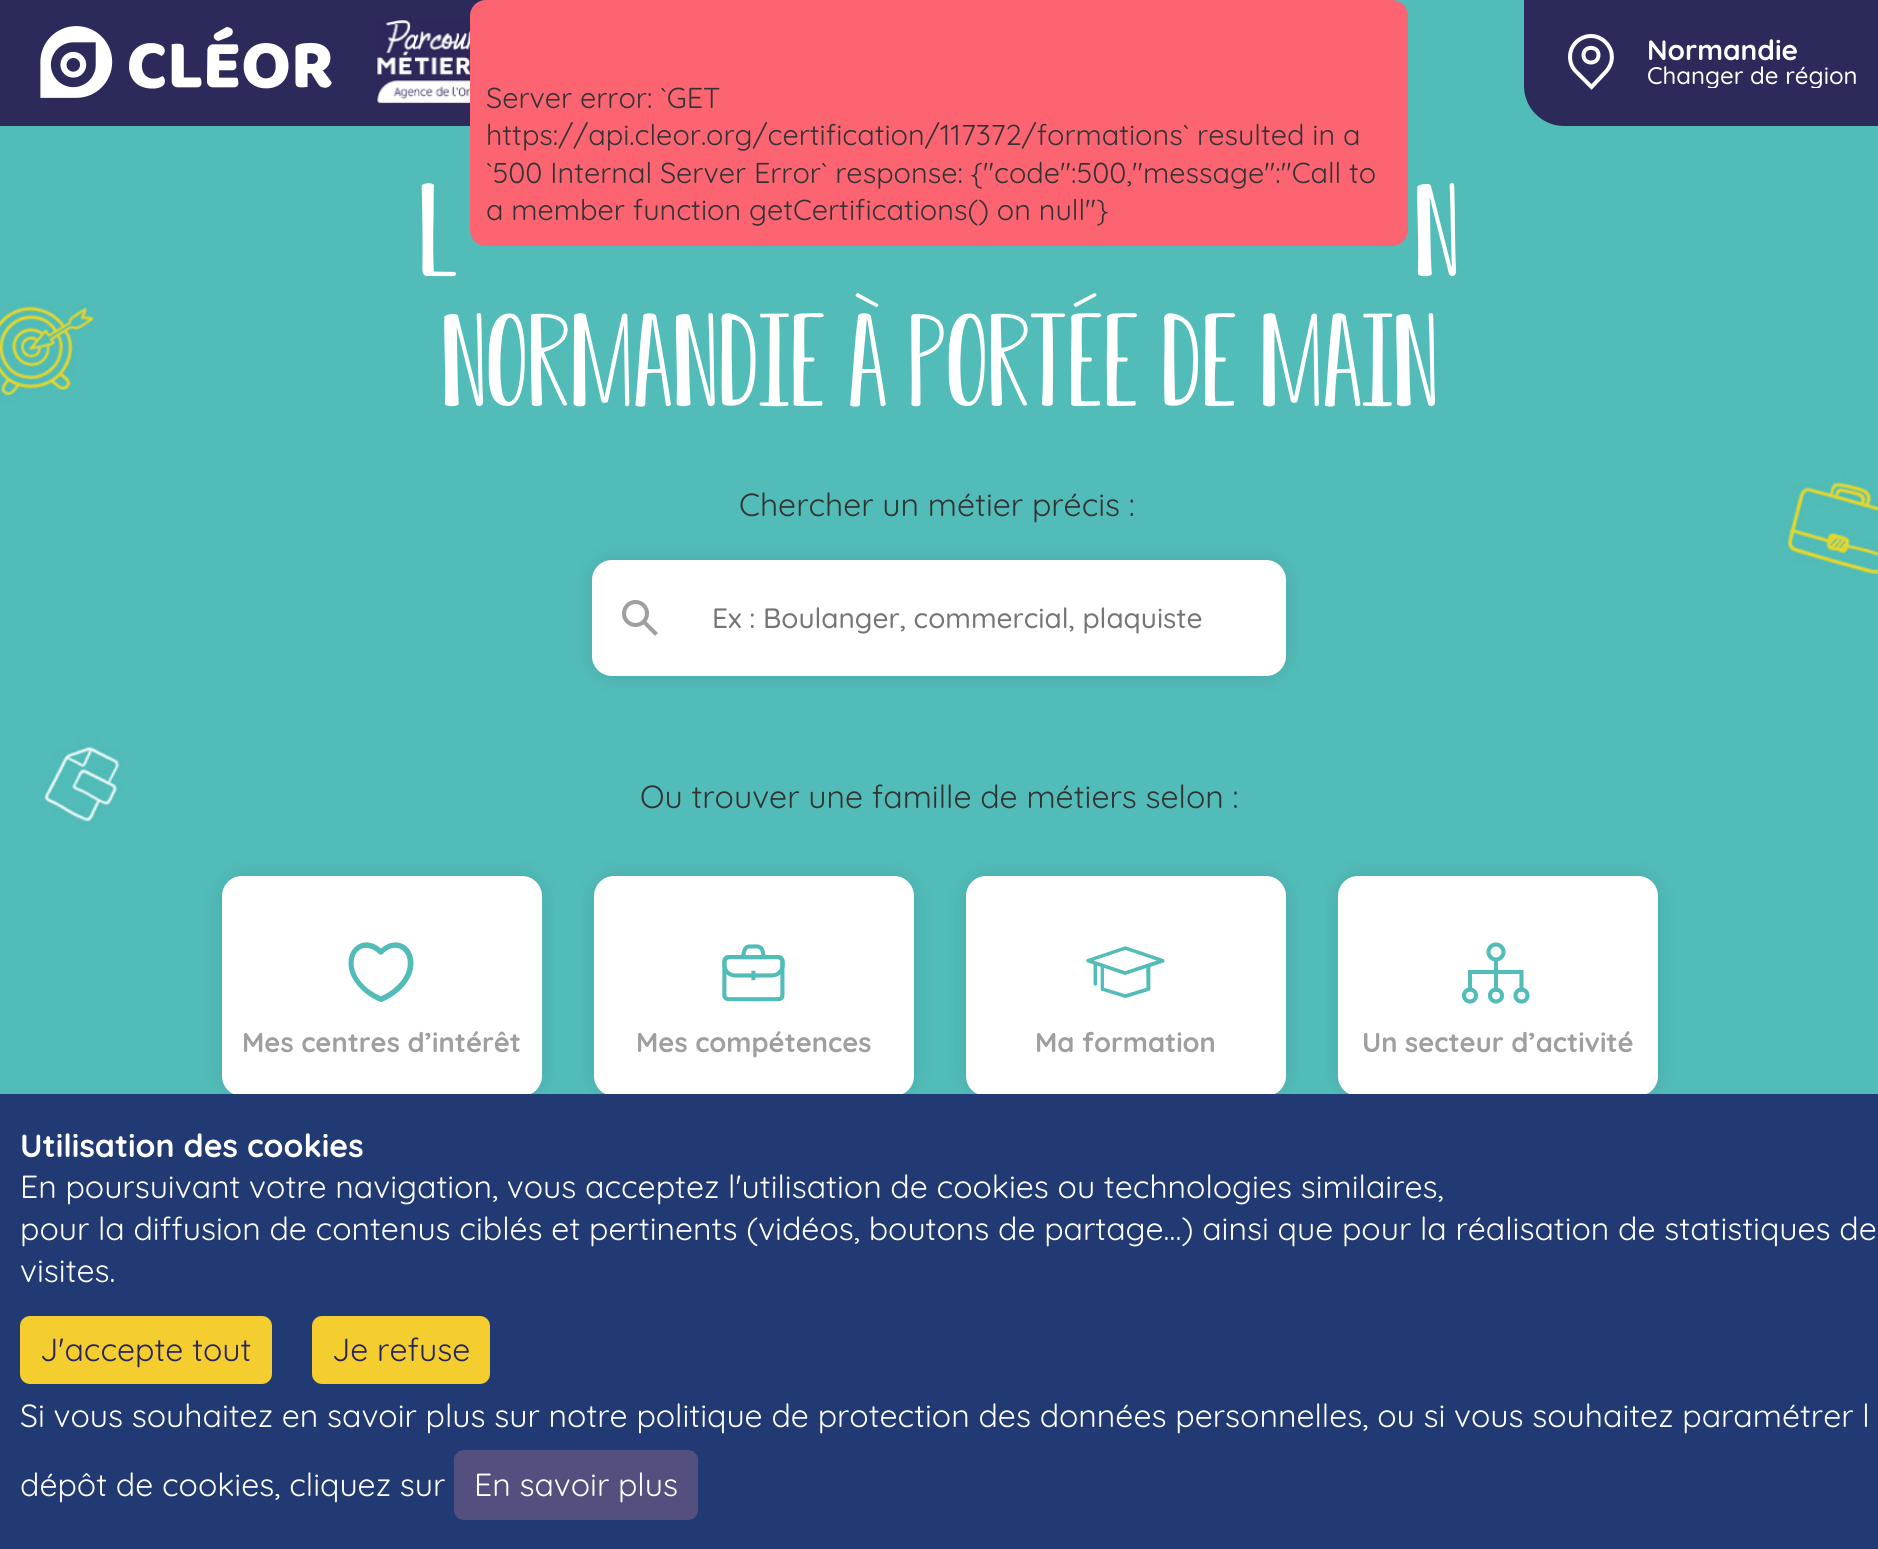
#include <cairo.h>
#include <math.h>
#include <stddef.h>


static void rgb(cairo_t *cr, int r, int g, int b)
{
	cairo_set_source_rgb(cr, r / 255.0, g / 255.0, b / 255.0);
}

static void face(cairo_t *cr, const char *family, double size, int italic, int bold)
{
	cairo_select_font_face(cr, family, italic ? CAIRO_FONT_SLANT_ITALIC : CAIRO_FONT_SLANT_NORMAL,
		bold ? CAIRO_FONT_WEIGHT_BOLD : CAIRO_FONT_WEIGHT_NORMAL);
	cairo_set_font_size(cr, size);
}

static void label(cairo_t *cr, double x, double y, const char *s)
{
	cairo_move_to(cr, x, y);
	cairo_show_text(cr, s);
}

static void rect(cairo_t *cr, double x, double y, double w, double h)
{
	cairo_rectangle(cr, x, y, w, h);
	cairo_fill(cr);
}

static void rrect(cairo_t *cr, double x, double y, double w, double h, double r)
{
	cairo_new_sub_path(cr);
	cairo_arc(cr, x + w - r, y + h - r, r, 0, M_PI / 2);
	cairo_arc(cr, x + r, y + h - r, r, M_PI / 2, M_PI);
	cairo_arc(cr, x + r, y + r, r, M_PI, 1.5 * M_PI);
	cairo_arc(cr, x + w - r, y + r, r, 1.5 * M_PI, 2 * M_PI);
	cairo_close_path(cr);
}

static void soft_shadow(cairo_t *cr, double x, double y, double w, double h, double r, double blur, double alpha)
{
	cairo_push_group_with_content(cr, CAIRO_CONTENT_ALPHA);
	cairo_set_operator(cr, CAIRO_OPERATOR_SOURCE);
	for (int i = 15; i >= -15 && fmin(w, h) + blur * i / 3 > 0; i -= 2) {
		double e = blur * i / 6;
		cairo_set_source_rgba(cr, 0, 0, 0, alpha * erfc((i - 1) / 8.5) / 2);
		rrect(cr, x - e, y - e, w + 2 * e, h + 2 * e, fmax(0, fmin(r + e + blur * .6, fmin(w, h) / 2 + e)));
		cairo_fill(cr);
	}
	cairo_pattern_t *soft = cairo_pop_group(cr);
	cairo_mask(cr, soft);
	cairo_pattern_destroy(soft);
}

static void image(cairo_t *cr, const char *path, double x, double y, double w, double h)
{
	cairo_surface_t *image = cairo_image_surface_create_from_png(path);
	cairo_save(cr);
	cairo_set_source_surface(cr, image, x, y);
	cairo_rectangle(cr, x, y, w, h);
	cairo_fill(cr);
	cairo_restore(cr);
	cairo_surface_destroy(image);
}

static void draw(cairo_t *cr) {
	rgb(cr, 255, 255, 255);
	cairo_paint(cr);
	image(cr, "image2.png", 0, 0, 1878, 1094);
	rgb(cr, 44, 42, 90);
	rect(cr, 0, 0, 486, 126);
	image(cr, "image0.png", 40, 26, 292, 72);
	image(cr, "image1.png", 376, 20, 94, 84);
	cairo_new_path(cr);
	cairo_move_to(cr, 1524, -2);
	cairo_line_to(cr, 1878, -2);
	cairo_line_to(cr, 1878, 126);
	cairo_line_to(cr, 1564, 126);
	cairo_curve_to(cr, 1542, 126, 1524, 108, 1524, 86);
	cairo_close_path(cr);
	cairo_fill(cr);
	cairo_new_path(cr);
	cairo_move_to(cr, 1591, 36);
	cairo_curve_to(cr, 1582.5, 36, 1575, 41, 1571.5, 49);
	cairo_curve_to(cr, 1568.5, 57, 1570, 66, 1576.5, 72);
	cairo_line_to(cr, 1591.5, 87);
	cairo_line_to(cr, 1606.5, 71);
	cairo_curve_to(cr, 1612, 64.5, 1613.5, 56, 1610, 48.5);
	cairo_curve_to(cr, 1606.5, 41, 1599, 36, 1591, 36);
	cairo_close_path(cr);
	cairo_move_to(cr, 1598.5, 55);
	cairo_curve_to(cr, 1598.5, 65, 1583.5, 65, 1583.5, 55);
	cairo_curve_to(cr, 1583.5, 45.5, 1598.5, 45.5, 1598.5, 55);
	cairo_close_path(cr);
	rgb(cr, 255, 255, 255);
	cairo_set_line_width(cr, 4);
	cairo_stroke(cr);
	face(cr, "Quicksand", 28, 0, 1);
	label(cr, 1647, 60, "Normandie");
	cairo_save(cr);
	cairo_rectangle(cr, 1648, 64, 210, 24);
	cairo_clip(cr);
	face(cr, "Quicksand Medium", 24, 0, 0);
	label(cr, 1647, 84, "Changer de région");
	cairo_restore(cr);
	rgb(cr, 252, 100, 113);
	rrect(cr, 470, 0, 938, 246, 16);
	cairo_fill(cr);
	face(cr, "Quicksand", 28.8, 0, 0);
	rgb(cr, 51, 51, 51);
	label(cr, 486, 108, "Server error: `GET");
	label(cr, 486, 145, "https://api.cleor.org/certification/117372/formations` resulted in a");
	label(cr, 486, 183, "`500 Internal Server Error` response: {\"code\":500,\"message\":\"Call to");
	label(cr, 486, 220, "a member function getCertifications() on null\"}");
	face(cr, "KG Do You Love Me", 100, 0, 0);
	rgb(cr, 255, 255, 255);
	label(cr, 420, 276, "L");
	label(cr, 1414, 276, "n");
	label(cr, 441, 406, "Normandie à portée de main");
	face(cr, "Quicksand", 32, 0, 0);
	rgb(cr, 51, 51, 51);
	label(cr, 739, 516, "Chercher un métier précis :");
	rgb(cr, 0, 0, 0);
	soft_shadow(cr, 592, 560, 694, 116, 20, 10, 0.1);
	rgb(cr, 255, 255, 255);
	rrect(cr, 592, 560, 694, 116, 20);
	cairo_fill(cr);
	cairo_arc(cr, 635.5, 613.5, 11.5, 0, 2 * M_PI);
	rgb(cr, 159, 159, 159);
	cairo_set_line_width(cr, 4.1);
	cairo_stroke(cr);
	cairo_new_path(cr);
	cairo_move_to(cr, 643.5, 621.5);
	cairo_line_to(cr, 656.5, 634.5);
	cairo_stroke(cr);
	face(cr, "Quicksand Medium", 28, 0, 0);
	rgb(cr, 117, 117, 117);
	label(cr, 712, 628, "Ex : Boulanger, commercial, plaquiste");
	face(cr, "Quicksand", 32, 0, 0);
	rgb(cr, 51, 51, 51);
	label(cr, 640, 808, "Ou trouver une famille de métiers selon :");
	rgb(cr, 0, 0, 0);
	soft_shadow(cr, 222, 876, 320, 220, 20, 10, 0.1);
	rgb(cr, 255, 255, 255);
	rrect(cr, 222, 876, 320, 220, 20);
	cairo_fill(cr);
	image(cr, "image3.png", 348, 942, 66, 60);
	face(cr, "Quicksand", 27.25, 0, 1);
	rgb(cr, 159, 159, 159);
	label(cr, 242, 1052, "Mes centres d’intérêt");
	rgb(cr, 0, 0, 0);
	soft_shadow(cr, 594, 876, 320, 220, 20, 10, 0.1);
	rgb(cr, 255, 255, 255);
	rrect(cr, 594, 876, 320, 220, 20);
	cairo_fill(cr);
	image(cr, "image4.png", 722, 944, 63, 58);
	rgb(cr, 159, 159, 159);
	label(cr, 636, 1052, "Mes compétences");
	rgb(cr, 0, 0, 0);
	soft_shadow(cr, 966, 876, 320, 220, 20, 10, 0.1);
	rgb(cr, 255, 255, 255);
	rrect(cr, 966, 876, 320, 220, 20);
	cairo_fill(cr);
	image(cr, "image5.png", 1086, 946, 79, 53);
	rgb(cr, 159, 159, 159);
	label(cr, 1035, 1052, "Ma formation");
	rgb(cr, 0, 0, 0);
	soft_shadow(cr, 1338, 876, 320, 220, 20, 10, 0.1);
	rgb(cr, 255, 255, 255);
	rrect(cr, 1338, 876, 320, 220, 20);
	cairo_fill(cr);
	cairo_arc(cr, 1496, 952, 7.5, 0, 2 * M_PI);
	rgb(cr, 81, 188, 184);
	cairo_stroke(cr);
	cairo_arc(cr, 1470, 995.5, 6, 0, 2 * M_PI);
	cairo_stroke(cr);
	cairo_arc(cr, 1496, 995.5, 6, 0, 2 * M_PI);
	cairo_stroke(cr);
	cairo_arc(cr, 1521.5, 995.5, 6, 0, 2 * M_PI);
	cairo_stroke(cr);
	cairo_new_path(cr);
	cairo_move_to(cr, 1470, 989.5);
	cairo_line_to(cr, 1470, 972);
	cairo_line_to(cr, 1521.5, 972);
	cairo_line_to(cr, 1521.5, 989.5);
	cairo_set_line_cap(cr, CAIRO_LINE_CAP_SQUARE);
	cairo_stroke(cr);
	rect(cr, 1494, 960, 4, 32);
	rgb(cr, 159, 159, 159);
	label(cr, 1362, 1052, "Un secteur d’activité");
	rgb(cr, 33, 58, 115);
	rect(cr, 0, 1094, 1878, 455);
	face(cr, "Quicksand", 32, 0, 1);
	rgb(cr, 255, 255, 255);
	label(cr, 20, 1157, "Utilisation des cookies");
	face(cr, "Quicksand", 32, 0, 0);
	label(cr, 20, 1198, "En poursuivant votre navigation, vous acceptez l'utilisation de cookies ou technologies similaires,");
	label(cr, 20, 1240, "pour la diffusion de contenus ciblés et pertinents (vidéos, boutons de partage…) ainsi que pour la réalisation de statistiques de");
	label(cr, 20, 1282, "visites.");
	rgb(cr, 244, 206, 46);
	rrect(cr, 20, 1316, 252, 68, 10);
	cairo_fill(cr);
	rgb(cr, 40, 35, 93);
	label(cr, 40, 1361, "J'accepte tout");
	rgb(cr, 244, 206, 46);
	rrect(cr, 312, 1316, 178, 68, 10);
	cairo_fill(cr);
	rgb(cr, 40, 35, 93);
	label(cr, 332, 1361, "Je refuse");
	rgb(cr, 255, 255, 255);
	label(cr, 20, 1427, "Si vous souhaitez en savoir plus sur notre politique de protection des données personnelles, ou si vous souhaitez paramétrer l");
	label(cr, 20, 1496, "dépôt de cookies, cliquez sur");
	rgb(cr, 83, 80, 127);
	rrect(cr, 454, 1450, 244, 70, 10);
	cairo_fill(cr);
	rgb(cr, 255, 255, 255);
	label(cr, 474, 1496, "En savoir plus");
}

int main(void) {
	cairo_surface_t *surface = cairo_image_surface_create(CAIRO_FORMAT_RGB24, 1878, 1549);
	cairo_t *cr = cairo_create(surface);
	cairo_font_options_t *options = cairo_font_options_create();
	cairo_font_options_set_hint_metrics(options, CAIRO_HINT_METRICS_OFF);
	cairo_font_options_set_hint_style(options, CAIRO_HINT_STYLE_NONE);
	cairo_set_font_options(cr, options);
	cairo_set_miter_limit(cr, 4);
	draw(cr);
	cairo_surface_write_to_png(surface, "render.png");
	cairo_font_options_destroy(options);
	cairo_destroy(cr);
	cairo_surface_destroy(surface);
	return 0;
}
